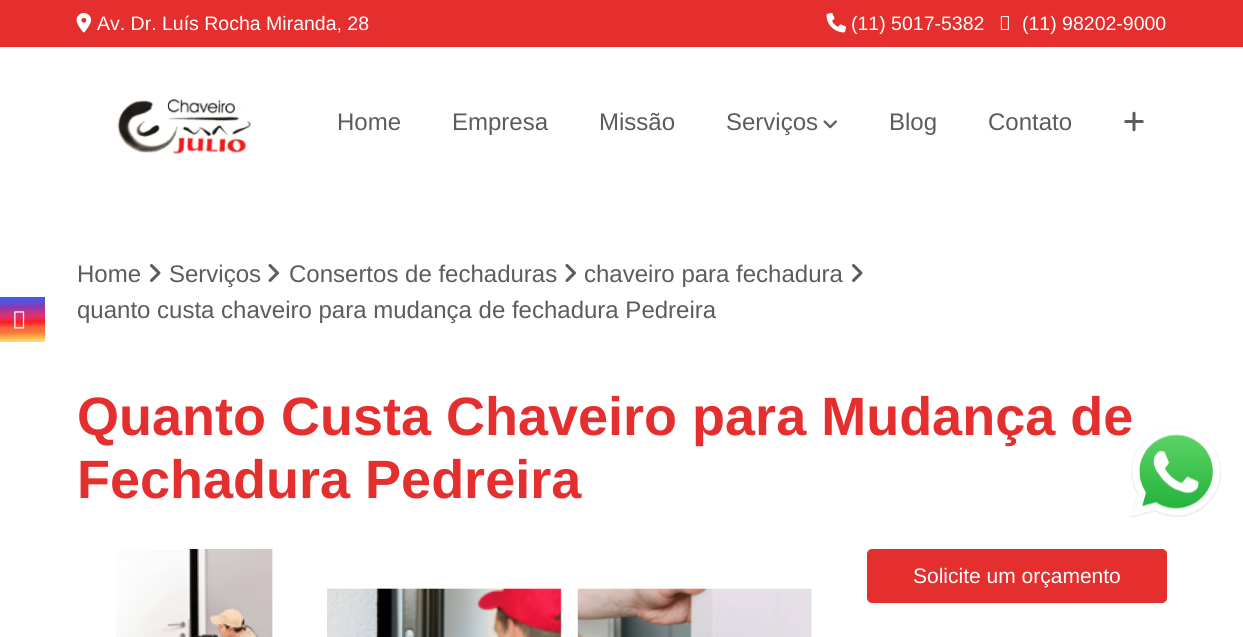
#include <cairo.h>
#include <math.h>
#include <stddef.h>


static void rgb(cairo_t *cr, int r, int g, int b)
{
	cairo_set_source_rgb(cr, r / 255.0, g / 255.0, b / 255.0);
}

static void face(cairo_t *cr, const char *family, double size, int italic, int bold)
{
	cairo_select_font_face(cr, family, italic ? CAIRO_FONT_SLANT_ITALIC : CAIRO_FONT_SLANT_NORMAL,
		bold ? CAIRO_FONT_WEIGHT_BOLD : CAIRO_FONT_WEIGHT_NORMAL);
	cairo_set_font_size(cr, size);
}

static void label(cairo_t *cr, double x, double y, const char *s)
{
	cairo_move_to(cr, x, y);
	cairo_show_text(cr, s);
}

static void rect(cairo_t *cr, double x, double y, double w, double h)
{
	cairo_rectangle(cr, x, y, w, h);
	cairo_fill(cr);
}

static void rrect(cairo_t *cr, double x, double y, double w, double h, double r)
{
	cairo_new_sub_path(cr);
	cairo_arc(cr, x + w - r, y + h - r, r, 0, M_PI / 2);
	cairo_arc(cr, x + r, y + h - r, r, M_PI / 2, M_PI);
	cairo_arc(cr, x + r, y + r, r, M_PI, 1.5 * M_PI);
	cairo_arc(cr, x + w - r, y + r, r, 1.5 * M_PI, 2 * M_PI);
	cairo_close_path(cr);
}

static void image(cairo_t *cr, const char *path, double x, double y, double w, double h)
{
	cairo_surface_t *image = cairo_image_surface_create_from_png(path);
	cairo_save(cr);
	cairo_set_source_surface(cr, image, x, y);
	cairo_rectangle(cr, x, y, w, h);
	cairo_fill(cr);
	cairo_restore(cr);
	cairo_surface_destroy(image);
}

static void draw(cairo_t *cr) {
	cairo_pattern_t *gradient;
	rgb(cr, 255, 255, 255);
	cairo_paint(cr);
	rgb(cr, 229, 46, 46);
	rect(cr, 0, 0, 1243, 47);
	image(cr, "image0.png", 76, 12, 16, 21);
	face(cr, "Liberation Sans", 19.5, 0, 0);
	rgb(cr, 255, 255, 255);
	label(cr, 97, 30, "Av. Dr. Luís Rocha Miranda, 28");
	image(cr, "image1.png", 826, 13, 20, 20);
	label(cr, 851, 30, "(11) 5017-5382");
	image(cr, "image2.png", 1000, 16, 9, 14);
	label(cr, 1022, 30, "(11) 98202-9000");
	image(cr, "image3.png", 117, 98, 135, 56);
	face(cr, "Liberation Sans", 24, 0, 0);
	rgb(cr, 92, 92, 92);
	label(cr, 337, 130, "Home");
	label(cr, 452, 130, "Empresa");
	label(cr, 599, 130, "Missão");
	label(cr, 726, 130, "Serviços");
	image(cr, "image4.png", 823, 120, 14, 9);
	label(cr, 889, 130, "Blog");
	label(cr, 988, 130, "Contato");
	image(cr, "image5.png", 1124, 111, 20, 21);
	label(cr, 77, 282, "Home");
	image(cr, "image6.png", 150, 264, 11, 18);
	label(cr, 169, 282, "Serviços");
	image(cr, "image7.png", 268, 264, 11, 18);
	label(cr, 289, 282, "Consertos de fechaduras");
	image(cr, "image7.png", 565, 264, 11, 18);
	label(cr, 584, 282, "chaveiro para fechadura");
	image(cr, "image6.png", 852, 264, 11, 18);
	label(cr, 77, 318, "quanto custa chaveiro para mudança de fechadura Pedreira");
	face(cr, "Liberation Sans", 54, 0, 1);
	rgb(cr, 229, 46, 46);
	label(cr, 77, 435, "Quanto Custa Chaveiro para Mudança de");
	label(cr, 77, 498, "Fechadura Pedreira");
	image(cr, "image8.png", 116, 549, 157, 88);
	image(cr, "image9.png", 327, 588, 235, 49);
	image(cr, "image10.png", 577, 588, 235, 49);
	rrect(cr, 867, 549, 300, 54, 5);
	cairo_fill(cr);
	face(cr, "Liberation Sans", 21, 0, 0);
	rgb(cr, 255, 255, 255);
	label(cr, 913, 583, "Solicite um orçamento");
	gradient = cairo_pattern_create_linear(22, 297, 23, 342);
	cairo_pattern_add_color_stop_rgba(gradient, 0, 0.251, 0.365, 0.902, 1);
	cairo_pattern_add_color_stop_rgba(gradient, 0.11, 0.357, 0.318, 0.847, 1);
	cairo_pattern_add_color_stop_rgba(gradient, 0.22, 0.514, 0.227, 0.706, 1);
	cairo_pattern_add_color_stop_rgba(gradient, 0.33, 0.757, 0.208, 0.518, 1);
	cairo_pattern_add_color_stop_rgba(gradient, 0.44, 0.882, 0.188, 0.424, 1);
	cairo_pattern_add_color_stop_rgba(gradient, 0.56, 0.992, 0.114, 0.114, 1);
	cairo_pattern_add_color_stop_rgba(gradient, 0.67, 0.961, 0.376, 0.251, 1);
	cairo_pattern_add_color_stop_rgba(gradient, 0.78, 0.969, 0.467, 0.216, 1);
	cairo_pattern_add_color_stop_rgba(gradient, 0.89, 0.988, 0.686, 0.271, 1);
	cairo_pattern_add_color_stop_rgba(gradient, 1, 1, 0.863, 0.502, 1);
	cairo_set_source(cr, gradient);
	cairo_pattern_destroy(gradient);
	rect(cr, 0, 297, 45, 45);
	image(cr, "image11.png", 14, 311, 11, 18);
	image(cr, "image12.png", 1131, 427, 90, 91);
}

int main(void) {
	cairo_surface_t *surface = cairo_image_surface_create(CAIRO_FORMAT_RGB24, 1243, 637);
	cairo_t *cr = cairo_create(surface);
	cairo_font_options_t *options = cairo_font_options_create();
	cairo_font_options_set_hint_metrics(options, CAIRO_HINT_METRICS_OFF);
	cairo_font_options_set_hint_style(options, CAIRO_HINT_STYLE_NONE);
	cairo_set_font_options(cr, options);
	cairo_set_miter_limit(cr, 4);
	draw(cr);
	cairo_surface_write_to_png(surface, "render.png");
	cairo_font_options_destroy(options);
	cairo_destroy(cr);
	cairo_surface_destroy(surface);
	return 0;
}
